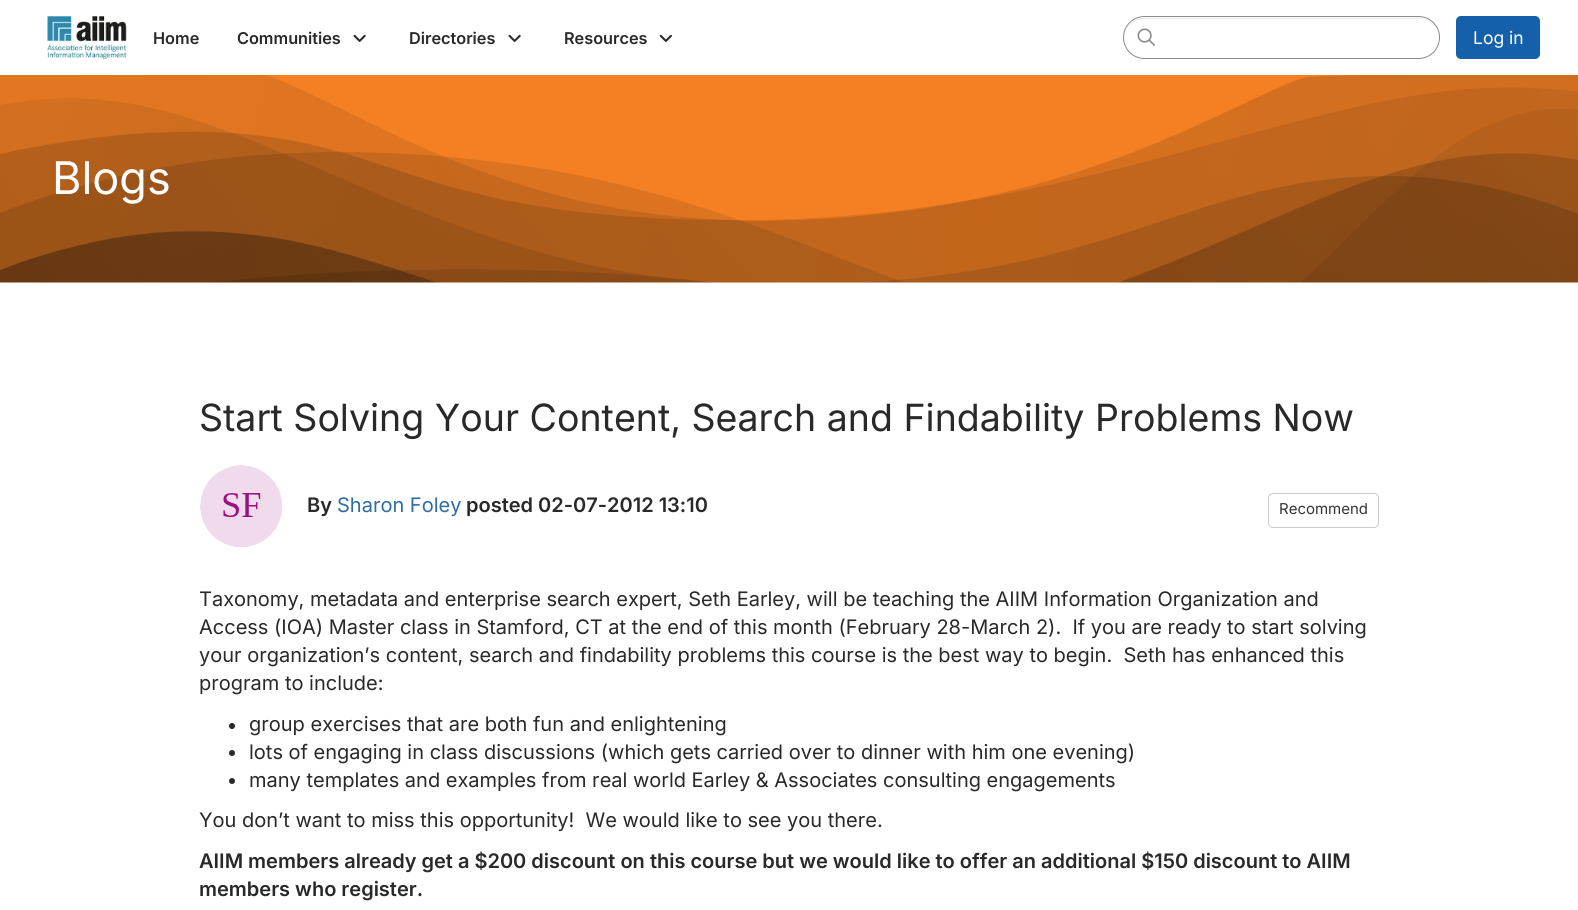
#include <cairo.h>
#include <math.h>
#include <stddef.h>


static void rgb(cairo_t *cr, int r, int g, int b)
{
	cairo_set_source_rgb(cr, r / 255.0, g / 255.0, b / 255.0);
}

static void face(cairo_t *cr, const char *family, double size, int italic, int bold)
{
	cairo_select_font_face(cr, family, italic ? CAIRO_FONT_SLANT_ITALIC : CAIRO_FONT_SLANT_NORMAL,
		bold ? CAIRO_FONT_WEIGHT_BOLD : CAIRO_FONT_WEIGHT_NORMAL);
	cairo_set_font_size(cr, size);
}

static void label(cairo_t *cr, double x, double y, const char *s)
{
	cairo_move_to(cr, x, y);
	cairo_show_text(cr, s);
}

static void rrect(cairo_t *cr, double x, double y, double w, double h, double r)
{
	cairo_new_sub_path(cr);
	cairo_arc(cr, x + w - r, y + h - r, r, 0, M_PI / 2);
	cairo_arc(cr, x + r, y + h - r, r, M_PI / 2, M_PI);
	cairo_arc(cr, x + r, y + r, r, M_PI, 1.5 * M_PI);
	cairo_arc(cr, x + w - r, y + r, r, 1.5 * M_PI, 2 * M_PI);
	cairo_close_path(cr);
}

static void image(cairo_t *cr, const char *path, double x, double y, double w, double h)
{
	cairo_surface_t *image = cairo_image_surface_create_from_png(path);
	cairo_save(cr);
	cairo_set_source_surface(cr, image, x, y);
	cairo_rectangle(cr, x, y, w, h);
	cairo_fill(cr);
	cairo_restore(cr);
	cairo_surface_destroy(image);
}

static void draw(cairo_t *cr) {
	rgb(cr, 255, 255, 255);
	cairo_paint(cr);
	image(cr, "image0.png", 47, 16, 80, 43);
	face(cr, "Inter SemiBold", 16.25, 0, 0);
	rgb(cr, 41, 41, 41);
	label(cr, 153, 44, "Home");
	label(cr, 237, 44, "Communities");
	image(cr, "image1.png", 353, 34, 13, 8);
	label(cr, 409, 44, "Directories");
	image(cr, "image1.png", 508, 34, 13, 8);
	label(cr, 564, 44, "Resources");
	image(cr, "image2.png", 659, 34, 13, 8);
	rgb(cr, 236, 236, 236);
	cairo_new_path(cr);
	cairo_move_to(cr, 1144, 19);
	cairo_line_to(cr, 1419, 19);
	cairo_curve_to(cr, 1430, 19, 1439, 28, 1439, 39);
	cairo_curve_to(cr, 1439, 27, 1430, 18, 1419, 18);
	cairo_line_to(cr, 1144, 18);
	cairo_curve_to(cr, 1133, 18, 1124, 27, 1124, 39);
	cairo_curve_to(cr, 1124, 28, 1133, 19, 1144, 19);
	cairo_close_path(cr);
	cairo_fill(cr);
	rrect(cr, 1123.5, 16.5, 316, 42, 21);
	rgb(cr, 140, 140, 140);
	cairo_set_line_width(cr, 1);
	cairo_stroke(cr);
	image(cr, "image3.png", 1137, 28, 18, 18);
	rgb(cr, 20, 96, 170);
	rrect(cr, 1456.5, 16.5, 83, 42, 4.5);
	cairo_fill_preserve(cr);
	cairo_stroke(cr);
	face(cr, "Inter", 17.5, 0, 0);
	rgb(cr, 255, 255, 255);
	label(cr, 1473, 44, "Log in");
	image(cr, "image4.png", 0, 75, 1578, 208);
	face(cr, "Inter", 45, 0, 0);
	label(cr, 52, 194, "Blogs");
	face(cr, "Inter", 37.5, 0, 0);
	rgb(cr, 41, 41, 41);
	label(cr, 199, 431, "Start Solving Your Content, Search and Findability Problems Now");
	image(cr, "image5.png", 200, 465, 83, 82);
	face(cr, "Inter SemiBold", 20, 0, 0);
	label(cr, 307, 512, "By");
	face(cr, "Inter", 20, 0, 0);
	rgb(cr, 46, 109, 164);
	label(cr, 337, 512, "Sharon Foley");
	face(cr, "Inter SemiBold", 20, 0, 0);
	rgb(cr, 41, 41, 41);
	label(cr, 466, 512, "posted 02-07-2012 13:10");
	rrect(cr, 1268.5, 493.5, 110, 34, 4.5);
	rgb(cr, 204, 204, 204);
	cairo_stroke(cr);
	face(cr, "Inter", 15, 0, 0);
	rgb(cr, 51, 51, 51);
	label(cr, 1279, 514, "Recommend");
	face(cr, "Inter", 20, 0, 0);
	rgb(cr, 41, 41, 41);
	label(cr, 199, 606, "Taxonomy, metadata and enterprise search expert, Seth Earley, will be teaching the AIIM Information Organization and");
	label(cr, 199, 634, "Access (IOA) Master class in Stamford, CT at the end of this month (February 28-March 2).  If you are ready to start solving");
	label(cr, 199, 662, "your organization’s content, search and findability problems this course is the best way to begin.  Seth has enhanced this");
	label(cr, 199, 690, "program to include:");
	cairo_new_path(cr);
	cairo_arc(cr, 232, 726, 3, 0, 2 * M_PI);
	cairo_fill(cr);
	label(cr, 249, 731, "group exercises that are both fun and enlightening");
	cairo_new_path(cr);
	cairo_arc(cr, 232, 753, 3, 0, 2 * M_PI);
	cairo_fill(cr);
	label(cr, 249, 759, "lots of engaging in class discussions (which gets carried over to dinner with him one evening)");
	cairo_new_path(cr);
	cairo_arc(cr, 232, 781, 3, 0, 2 * M_PI);
	cairo_fill(cr);
	label(cr, 249, 787, "many templates and examples from real world Earley & Associates consulting engagements");
	label(cr, 199, 827, "You don’t want to miss this opportunity!  We would like to see you there.");
	face(cr, "Inter SemiBold", 20, 0, 0);
	label(cr, 199, 868, "AIIM members already get a $200 discount on this course but we would like to offer an additional $150 discount to AIIM");
	label(cr, 199, 896, "members who register.");
}

int main(void) {
	cairo_surface_t *surface = cairo_image_surface_create(CAIRO_FORMAT_RGB24, 1578, 910);
	cairo_t *cr = cairo_create(surface);
	cairo_font_options_t *options = cairo_font_options_create();
	cairo_font_options_set_hint_metrics(options, CAIRO_HINT_METRICS_OFF);
	cairo_font_options_set_hint_style(options, CAIRO_HINT_STYLE_NONE);
	cairo_set_font_options(cr, options);
	cairo_set_miter_limit(cr, 4);
	draw(cr);
	cairo_surface_write_to_png(surface, "render.png");
	cairo_font_options_destroy(options);
	cairo_destroy(cr);
	cairo_surface_destroy(surface);
	return 0;
}
